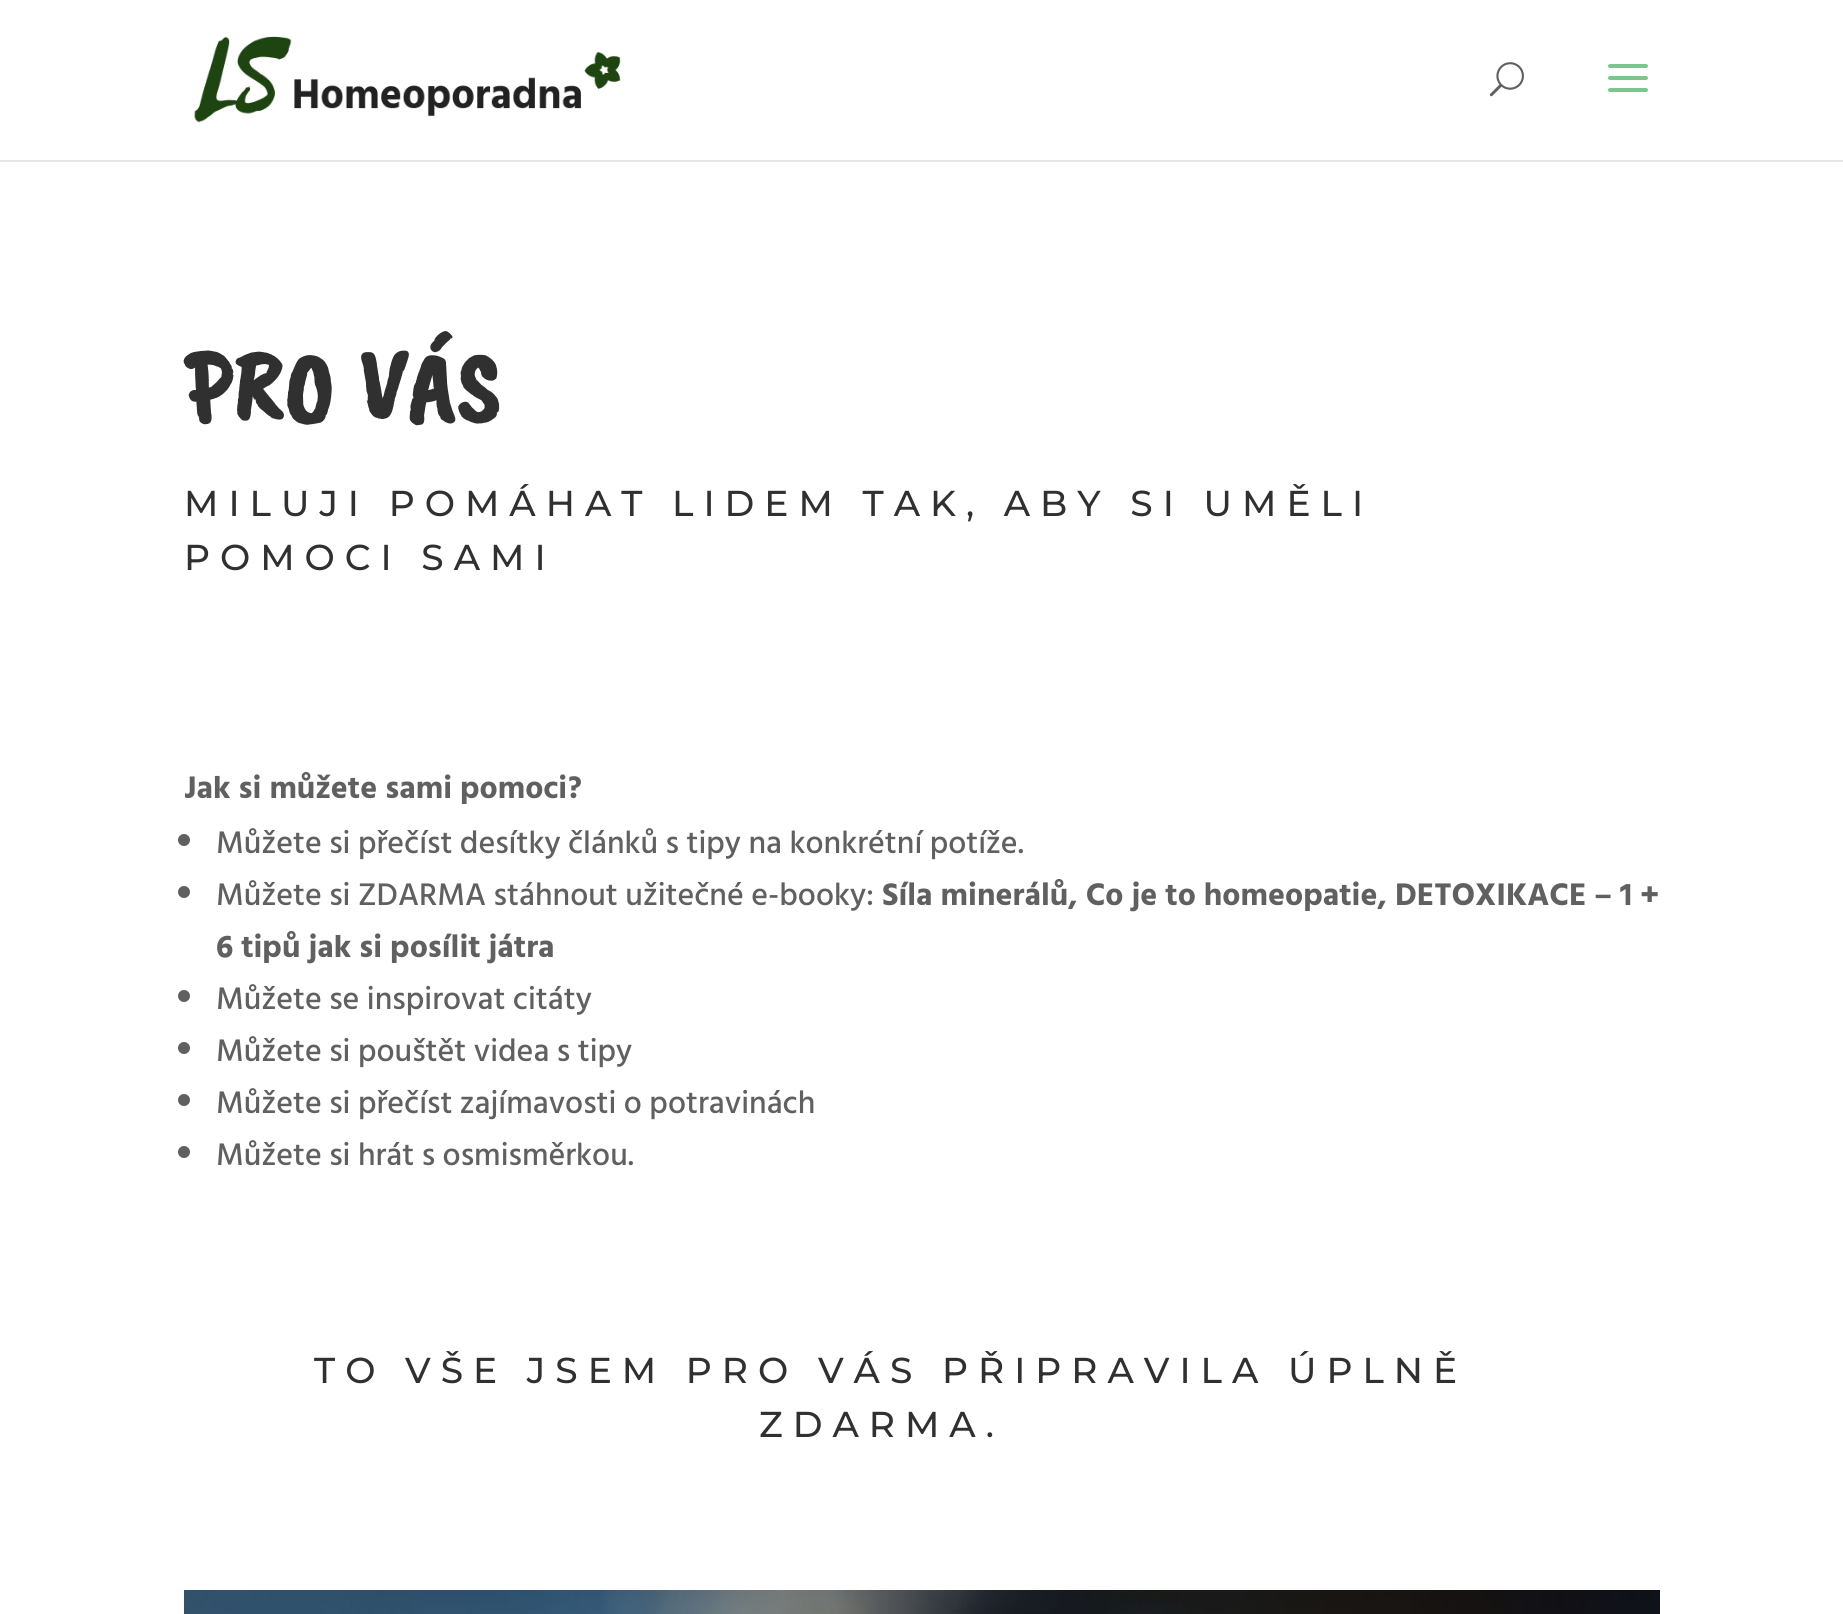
#include <cairo.h>
#include <math.h>
#include <stddef.h>


static void rgb(cairo_t *cr, int r, int g, int b)
{
	cairo_set_source_rgb(cr, r / 255.0, g / 255.0, b / 255.0);
}

static void face(cairo_t *cr, const char *family, double size, int italic, int bold)
{
	cairo_select_font_face(cr, family, italic ? CAIRO_FONT_SLANT_ITALIC : CAIRO_FONT_SLANT_NORMAL,
		bold ? CAIRO_FONT_WEIGHT_BOLD : CAIRO_FONT_WEIGHT_NORMAL);
	cairo_set_font_size(cr, size);
}

static void label(cairo_t *cr, double x, double y, const char *s)
{
	cairo_move_to(cr, x, y);
	cairo_show_text(cr, s);
}

static void tracked(cairo_t *cr, double x, double y, const char *s, double letter, double word)
{
	cairo_move_to(cr, x, y);
	while (*s) {
		char ch[5] = {0};
		int n = 0;
		do ch[n++] = *s++; while ((*s & 0xC0) == 0x80);
		cairo_show_text(cr, ch);
		cairo_rel_move_to(cr, letter + word * (*ch == ' '), 0);
	}
}

static void rect(cairo_t *cr, double x, double y, double w, double h)
{
	cairo_rectangle(cr, x, y, w, h);
	cairo_fill(cr);
}

static void image(cairo_t *cr, const char *path, double x, double y, double w, double h)
{
	cairo_surface_t *image = cairo_image_surface_create_from_png(path);
	cairo_save(cr);
	cairo_set_source_surface(cr, image, x, y);
	cairo_rectangle(cr, x, y, w, h);
	cairo_fill(cr);
	cairo_restore(cr);
	cairo_surface_destroy(image);
}

static void draw(cairo_t *cr) {
	rgb(cr, 255, 255, 255);
	cairo_paint(cr);
	rgb(cr, 230, 230, 230);
	rect(cr, 0, 160, 1843, 2);
	image(cr, "image0.png", 194, 36, 427, 87);
	image(cr, "image1.png", 1489, 62, 35, 35);
	image(cr, "image2.png", 1608, 64, 40, 28);
	face(cr, "Caveat Brush", 100, 0, 1);
	rgb(cr, 48, 48, 48);
	tracked(cr, 184, 420, "PRO VÁS", 2, 0);
	face(cr, "Montserrat Thin", 36, 0, 0);
	tracked(cr, 184, 516, "MILUJI POMÁHAT LIDEM TAK, ABY SI UMĚLI", 10, 0);
	tracked(cr, 184, 570, "POMOCI SAMI", 10, 0);
	face(cr, "Hind Siliguri", 32, 0, 1);
	rgb(cr, 96, 96, 96);
	label(cr, 184, 798, "Jak si můžete sami pomoci?");
	cairo_new_path(cr);
	cairo_arc(cr, 184, 840, 6, 0, 2 * M_PI);
	cairo_fill(cr);
	face(cr, "Hind Siliguri Medium", 32, 0, 0);
	label(cr, 216, 853, "Můžete si přečíst desítky článků s tipy na konkrétní potíže.");
	cairo_new_path(cr);
	cairo_arc(cr, 184, 892, 6, 0, 2 * M_PI);
	cairo_fill(cr);
	label(cr, 216, 905, "Můžete si ZDARMA stáhnout užitečné e-booky:");
	face(cr, "Hind Siliguri", 32, 0, 1);
	label(cr, 882, 905, "Síla minerálů, Co je to homeopatie, DETOXIKACE – 1 +");
	label(cr, 216, 957, "6 tipů jak si posílit játra");
	cairo_new_path(cr);
	cairo_arc(cr, 184, 996, 6, 0, 2 * M_PI);
	cairo_fill(cr);
	face(cr, "Hind Siliguri Medium", 32, 0, 0);
	label(cr, 216, 1009, "Můžete se inspirovat citáty");
	cairo_new_path(cr);
	cairo_arc(cr, 184, 1048, 6, 0, 2 * M_PI);
	cairo_fill(cr);
	label(cr, 216, 1061, "Můžete si pouštět videa s tipy");
	cairo_new_path(cr);
	cairo_arc(cr, 184, 1100, 6, 0, 2 * M_PI);
	cairo_fill(cr);
	label(cr, 216, 1113, "Můžete si přečíst zajímavosti o potravinách");
	cairo_new_path(cr);
	cairo_arc(cr, 184, 1152, 6, 0, 2 * M_PI);
	cairo_fill(cr);
	label(cr, 216, 1165, "Můžete si hrát s osmisměrkou.");
	face(cr, "Montserrat Thin", 36, 0, 0);
	rgb(cr, 48, 48, 48);
	tracked(cr, 314, 1383, "TO VŠE JSEM PRO VÁS PŘIPRAVILA ÚPLNĚ", 10, 0);
	tracked(cr, 759, 1437, "ZDARMA.", 10, 0);
	image(cr, "image3.png", 184, 1590, 1476, 24);
}

int main(void) {
	cairo_surface_t *surface = cairo_image_surface_create(CAIRO_FORMAT_RGB24, 1843, 1614);
	cairo_t *cr = cairo_create(surface);
	cairo_font_options_t *options = cairo_font_options_create();
	cairo_font_options_set_hint_metrics(options, CAIRO_HINT_METRICS_OFF);
	cairo_font_options_set_hint_style(options, CAIRO_HINT_STYLE_NONE);
	cairo_set_font_options(cr, options);
	cairo_set_miter_limit(cr, 4);
	draw(cr);
	cairo_surface_write_to_png(surface, "render.png");
	cairo_font_options_destroy(options);
	cairo_destroy(cr);
	cairo_surface_destroy(surface);
	return 0;
}
